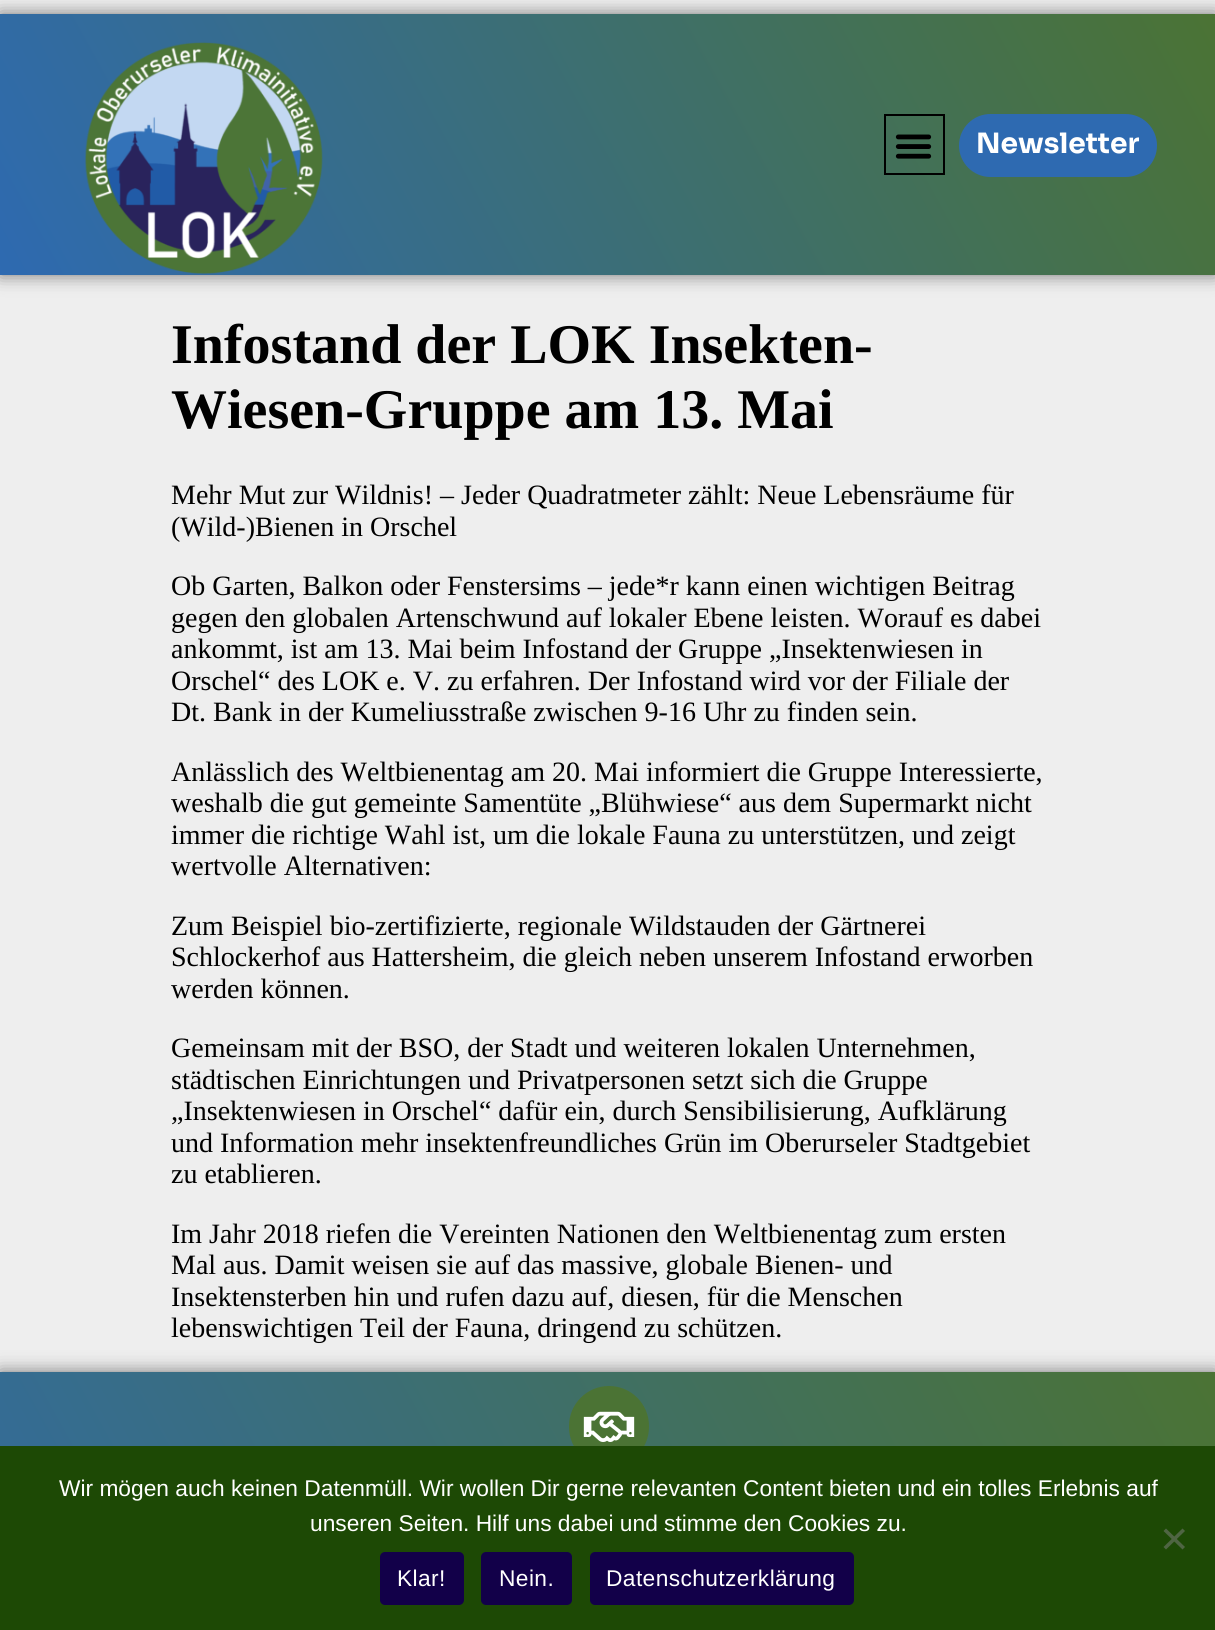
#include <cairo.h>
#include <math.h>
#include <stddef.h>


static void rgb(cairo_t *cr, int r, int g, int b)
{
	cairo_set_source_rgb(cr, r / 255.0, g / 255.0, b / 255.0);
}

static void face(cairo_t *cr, const char *family, double size, int italic, int bold)
{
	cairo_select_font_face(cr, family, italic ? CAIRO_FONT_SLANT_ITALIC : CAIRO_FONT_SLANT_NORMAL,
		bold ? CAIRO_FONT_WEIGHT_BOLD : CAIRO_FONT_WEIGHT_NORMAL);
	cairo_set_font_size(cr, size);
}

static void label(cairo_t *cr, double x, double y, const char *s)
{
	cairo_move_to(cr, x, y);
	cairo_show_text(cr, s);
}

static void tracked(cairo_t *cr, double x, double y, const char *s, double letter, double word)
{
	cairo_move_to(cr, x, y);
	while (*s) {
		char ch[5] = {0};
		int n = 0;
		do ch[n++] = *s++; while ((*s & 0xC0) == 0x80);
		cairo_show_text(cr, ch);
		cairo_rel_move_to(cr, letter + word * (*ch == ' '), 0);
	}
}

static void rect(cairo_t *cr, double x, double y, double w, double h)
{
	cairo_rectangle(cr, x, y, w, h);
	cairo_fill(cr);
}

static void rrect(cairo_t *cr, double x, double y, double w, double h, double r)
{
	cairo_new_sub_path(cr);
	cairo_arc(cr, x + w - r, y + h - r, r, 0, M_PI / 2);
	cairo_arc(cr, x + r, y + h - r, r, M_PI / 2, M_PI);
	cairo_arc(cr, x + r, y + r, r, M_PI, 1.5 * M_PI);
	cairo_arc(cr, x + w - r, y + r, r, 1.5 * M_PI, 2 * M_PI);
	cairo_close_path(cr);
}

static void soft_shadow(cairo_t *cr, double x, double y, double w, double h, double r, double blur, double alpha)
{
	cairo_push_group_with_content(cr, CAIRO_CONTENT_ALPHA);
	cairo_set_operator(cr, CAIRO_OPERATOR_SOURCE);
	for (int i = 15; i >= -15 && fmin(w, h) + blur * i / 3 > 0; i -= 2) {
		double e = blur * i / 6;
		cairo_set_source_rgba(cr, 0, 0, 0, alpha * erfc((i - 1) / 8.5) / 2);
		rrect(cr, x - e, y - e, w + 2 * e, h + 2 * e, fmax(0, fmin(r + e + blur * .6, fmin(w, h) / 2 + e)));
		cairo_fill(cr);
	}
	cairo_pattern_t *soft = cairo_pop_group(cr);
	cairo_mask(cr, soft);
	cairo_pattern_destroy(soft);
}

static void image(cairo_t *cr, const char *path, double x, double y, double w, double h)
{
	cairo_surface_t *image = cairo_image_surface_create_from_png(path);
	cairo_save(cr);
	cairo_set_source_surface(cr, image, x, y);
	cairo_rectangle(cr, x, y, w, h);
	cairo_fill(cr);
	cairo_restore(cr);
	cairo_surface_destroy(image);
}

static void draw(cairo_t *cr) {
	cairo_pattern_t *gradient;
	rgb(cr, 238, 238, 238);
	cairo_paint(cr);
	rgb(cr, 0, 0, 0);
	soft_shadow(cr, 0, 14, 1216, 261, 0, 9, 0.5);
	gradient = cairo_pattern_create_linear(1129, -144, 88, 433);
	cairo_pattern_add_color_stop_rgba(gradient, 0, 0.294, 0.451, 0.204, 1);
	cairo_pattern_add_color_stop_rgba(gradient, 1, 0.18, 0.416, 0.694, 1);
	cairo_set_source(cr, gradient);
	cairo_pattern_destroy(gradient);
	rect(cr, 0, 14, 1215, 261);
	image(cr, "image0.png", 85, 42, 238, 232);
	cairo_rectangle(cr, 885, 115, 59, 59);
	rgb(cr, 0, 0, 0);
	cairo_stroke(cr);
	image(cr, "image1.png", 895, 134, 37, 25);
	rgb(cr, 46, 106, 177);
	rrect(cr, 959, 114, 198, 63, 31.5);
	cairo_fill(cr);
	face(cr, "Sora", 28, 0, 1);
	rgb(cr, 255, 255, 255);
	label(cr, 976, 153, "Newsletter");
	face(cr, "Liberation Serif", 56, 0, 1);
	rgb(cr, 0, 0, 0);
	label(cr, 171, 363, "Infostand der LOK Insekten-");
	label(cr, 171, 428, "Wiesen-Gruppe am 13. Mai");
	face(cr, "Liberation Serif", 28, 0, 0);
	label(cr, 171, 504, "Mehr Mut zur Wildnis! – Jeder Quadratmeter zählt: Neue Lebensräume für");
	label(cr, 171, 536, "(Wild-)Bienen in Orschel");
	label(cr, 171, 595, "Ob Garten, Balkon oder Fenstersims – jede*r kann einen wichtigen Beitrag");
	label(cr, 171, 627, "gegen den globalen Artenschwund auf lokaler Ebene leisten. Worauf es dabei");
	label(cr, 171, 658, "ankommt, ist am 13. Mai beim Infostand der Gruppe „Insektenwiesen in");
	label(cr, 171, 690, "Orschel“ des LOK e. V. zu erfahren. Der Infostand wird vor der Filiale der");
	label(cr, 171, 721, "Dt. Bank in der Kumeliusstraße zwischen 9-16 Uhr zu finden sein.");
	label(cr, 171, 781, "Anlässlich des Weltbienentag am 20. Mai informiert die Gruppe Interessierte,");
	label(cr, 171, 812, "weshalb die gut gemeinte Samentüte „Blühwiese“ aus dem Supermarkt nicht");
	label(cr, 171, 844, "immer die richtige Wahl ist, um die lokale Fauna zu unterstützen, und zeigt");
	label(cr, 171, 875, "wertvolle Alternativen:");
	label(cr, 171, 935, "Zum Beispiel bio-zertifizierte, regionale Wildstauden der Gärtnerei");
	label(cr, 171, 966, "Schlockerhof aus Hattersheim, die gleich neben unserem Infostand erworben");
	label(cr, 171, 998, "werden können.");
	label(cr, 171, 1057, "Gemeinsam mit der BSO, der Stadt und weiteren lokalen Unternehmen,");
	label(cr, 171, 1089, "städtischen Einrichtungen und Privatpersonen setzt sich die Gruppe");
	label(cr, 171, 1120, "„Insektenwiesen in Orschel“ dafür ein, durch Sensibilisierung, Aufklärung");
	label(cr, 171, 1152, "und Information mehr insektenfreundliches Grün im Oberurseler Stadtgebiet");
	label(cr, 171, 1183, "zu etablieren.");
	label(cr, 171, 1243, "Im Jahr 2018 riefen die Vereinten Nationen den Weltbienentag zum ersten");
	label(cr, 171, 1274, "Mal aus. Damit weisen sie auf das massive, globale Bienen- und");
	label(cr, 171, 1306, "Insektensterben hin und rufen dazu auf, diesen, für die Menschen");
	label(cr, 171, 1337, "lebenswichtigen Teil der Fauna, dringend zu schützen.");
	rgb(cr, 0, 0, 0);
	soft_shadow(cr, 0, 1372, 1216, 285, 0, 9, 0.5);
	gradient = cairo_pattern_create_linear(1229, 1395, -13, 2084);
	cairo_pattern_add_color_stop_rgba(gradient, 0, 0.294, 0.451, 0.204, 1);
	cairo_pattern_add_color_stop_rgba(gradient, 1, 0.18, 0.416, 0.694, 1);
	cairo_set_source(cr, gradient);
	cairo_pattern_destroy(gradient);
	rect(cr, 0, 1372, 1215, 74);
	rgb(cr, 75, 115, 52);
	rrect(cr, 569, 1386, 80, 81, 40);
	cairo_fill(cr);
	image(cr, "image2.png", 583, 1411, 52, 31);
	rgb(cr, 29, 73, 5);
	rect(cr, 0, 1446, 1215, 184);
	face(cr, "Liberation Sans", 22.75, 0, 0);
	rgb(cr, 255, 255, 255);
	label(cr, 59, 1496, "Wir mögen auch keinen Datenmüll. Wir wollen Dir gerne relevanten Content bieten und ein tolles Erlebnis auf");
	label(cr, 310, 1531, "unseren Seiten. Hilf uns dabei und stimme den Cookies zu.");
	rgb(cr, 79, 101, 67);
	cairo_new_path(cr);
	cairo_move_to(cr, 1182.5, 1528.5);
	cairo_line_to(cr, 1185, 1531);
	cairo_line_to(cr, 1166, 1549.5);
	cairo_line_to(cr, 1163.5, 1547);
	cairo_close_path(cr);
	cairo_fill(cr);
	cairo_new_path(cr);
	cairo_move_to(cr, 1163.5, 1531);
	cairo_line_to(cr, 1166, 1528.5);
	cairo_line_to(cr, 1185, 1547);
	cairo_line_to(cr, 1182.5, 1549.5);
	cairo_close_path(cr);
	cairo_fill(cr);
	rgb(cr, 18, 0, 73);
	rrect(cr, 380, 1552, 84, 53, 5);
	cairo_fill(cr);
	rgb(cr, 255, 255, 255);
	tracked(cr, 397, 1586, "Klar!", 0.4, 0);
	rgb(cr, 18, 0, 73);
	rrect(cr, 481, 1552, 91, 53, 5);
	cairo_fill(cr);
	rgb(cr, 255, 255, 255);
	tracked(cr, 499, 1586, "Nein.", 0.4, 0);
	rgb(cr, 18, 0, 73);
	rrect(cr, 590, 1552, 264, 53, 5);
	cairo_fill(cr);
	rgb(cr, 255, 255, 255);
	tracked(cr, 606, 1586, "Datenschutzerklärung", 0.4, 0);
}

int main(void) {
	cairo_surface_t *surface = cairo_image_surface_create(CAIRO_FORMAT_RGB24, 1215, 1630);
	cairo_t *cr = cairo_create(surface);
	cairo_font_options_t *options = cairo_font_options_create();
	cairo_font_options_set_hint_metrics(options, CAIRO_HINT_METRICS_OFF);
	cairo_font_options_set_hint_style(options, CAIRO_HINT_STYLE_NONE);
	cairo_set_font_options(cr, options);
	cairo_set_miter_limit(cr, 4);
	draw(cr);
	cairo_surface_write_to_png(surface, "render.png");
	cairo_font_options_destroy(options);
	cairo_destroy(cr);
	cairo_surface_destroy(surface);
	return 0;
}
